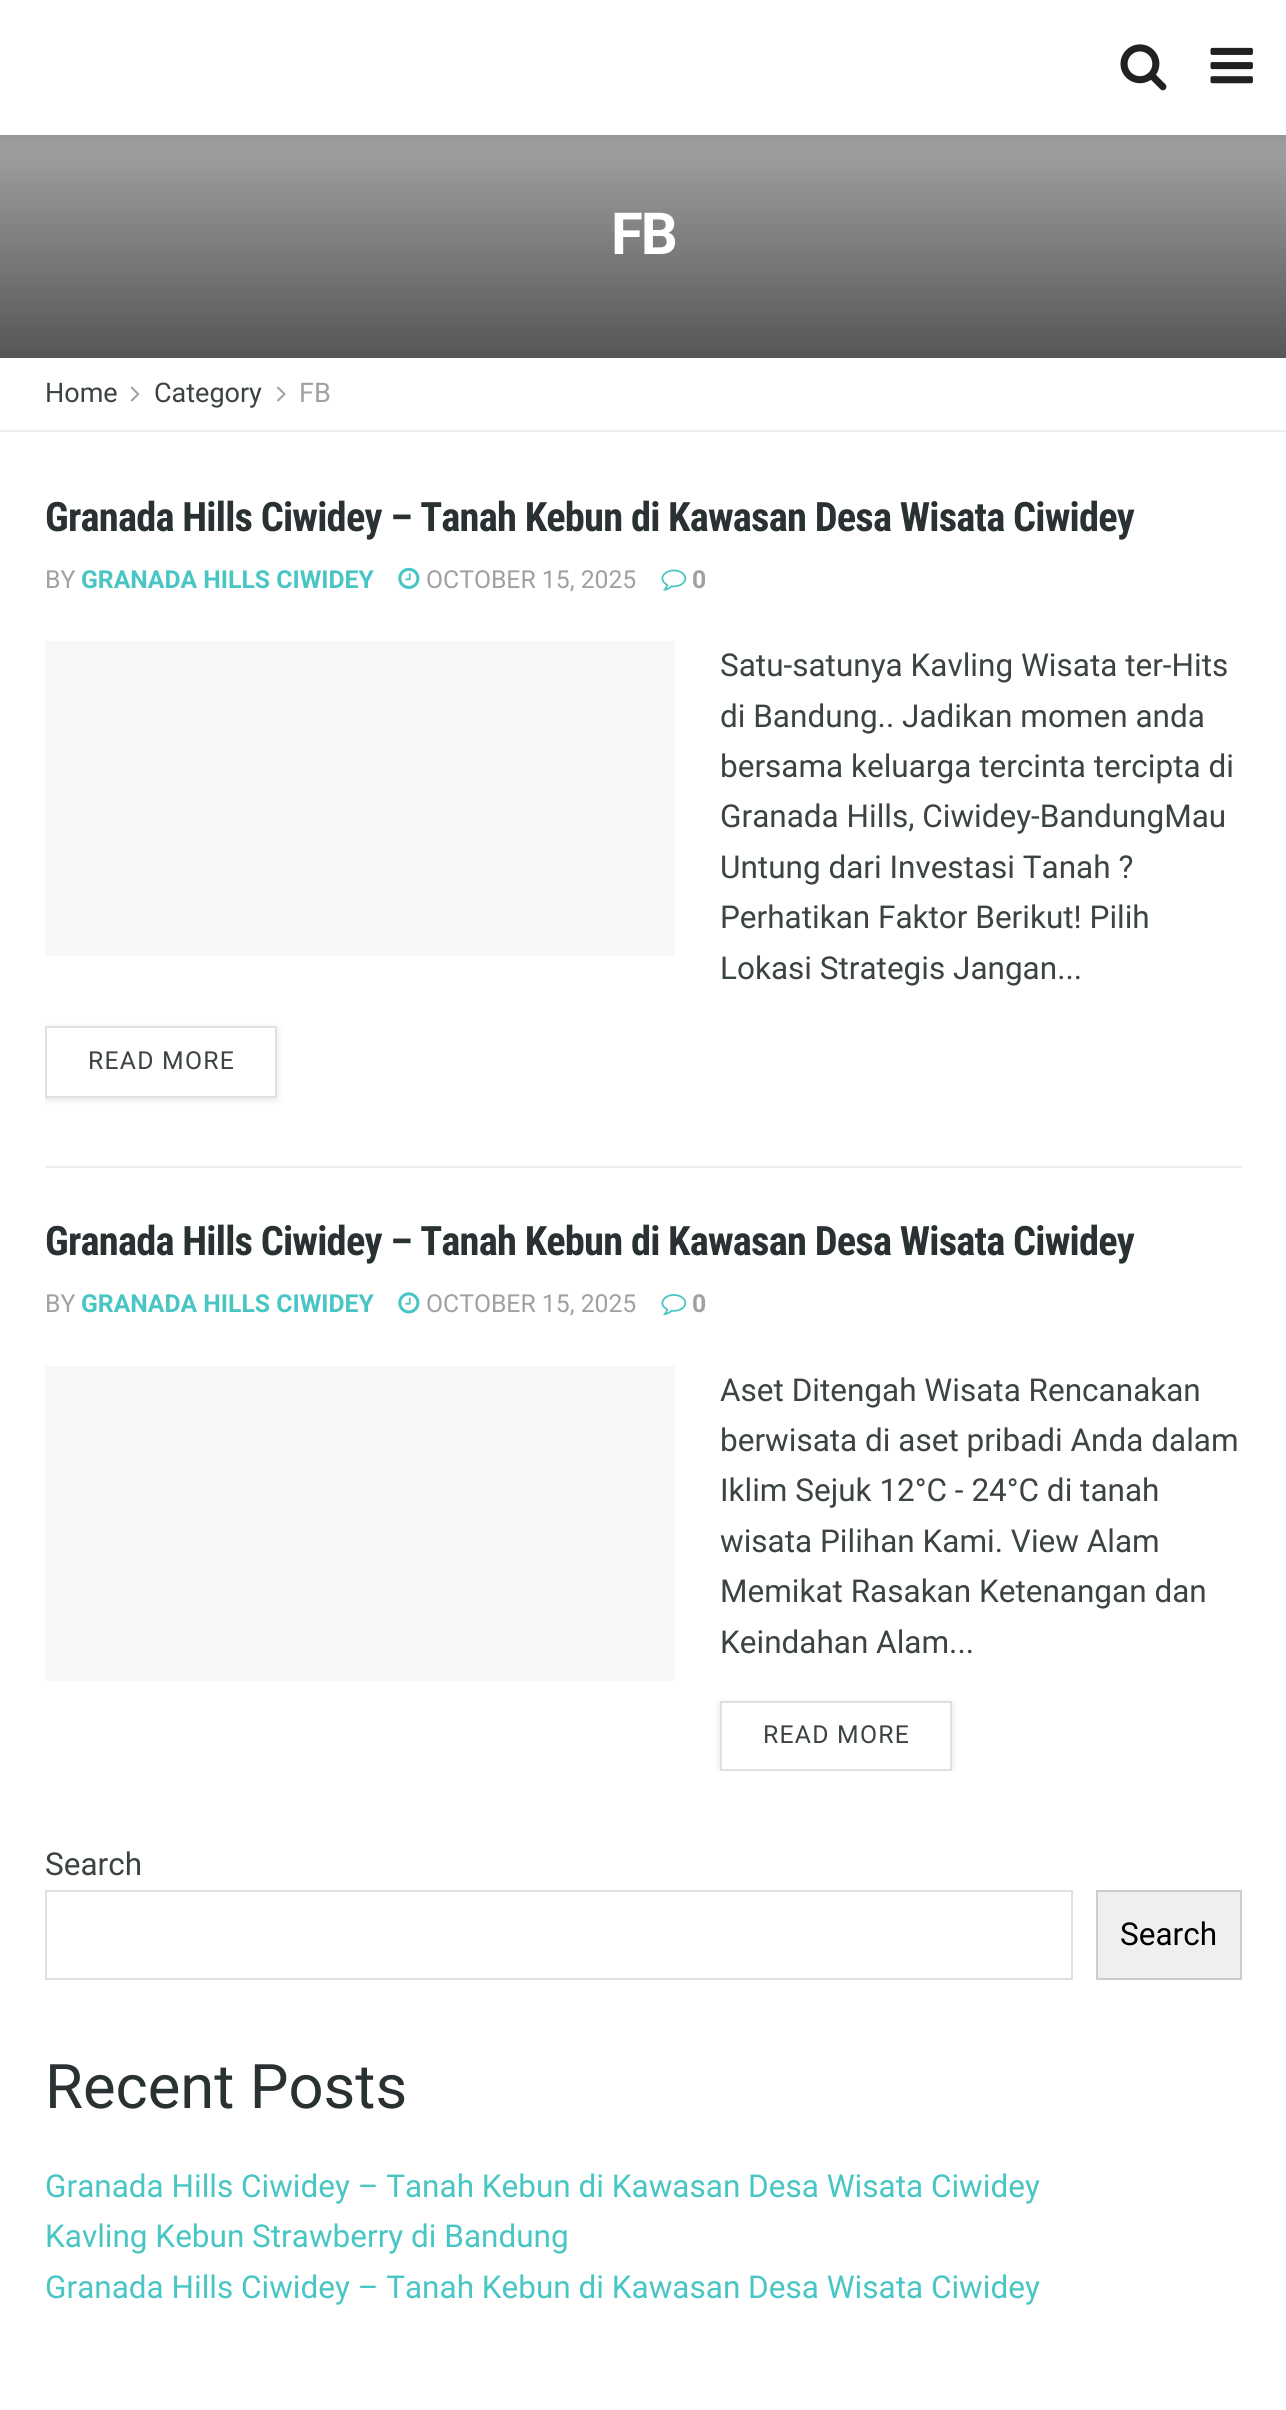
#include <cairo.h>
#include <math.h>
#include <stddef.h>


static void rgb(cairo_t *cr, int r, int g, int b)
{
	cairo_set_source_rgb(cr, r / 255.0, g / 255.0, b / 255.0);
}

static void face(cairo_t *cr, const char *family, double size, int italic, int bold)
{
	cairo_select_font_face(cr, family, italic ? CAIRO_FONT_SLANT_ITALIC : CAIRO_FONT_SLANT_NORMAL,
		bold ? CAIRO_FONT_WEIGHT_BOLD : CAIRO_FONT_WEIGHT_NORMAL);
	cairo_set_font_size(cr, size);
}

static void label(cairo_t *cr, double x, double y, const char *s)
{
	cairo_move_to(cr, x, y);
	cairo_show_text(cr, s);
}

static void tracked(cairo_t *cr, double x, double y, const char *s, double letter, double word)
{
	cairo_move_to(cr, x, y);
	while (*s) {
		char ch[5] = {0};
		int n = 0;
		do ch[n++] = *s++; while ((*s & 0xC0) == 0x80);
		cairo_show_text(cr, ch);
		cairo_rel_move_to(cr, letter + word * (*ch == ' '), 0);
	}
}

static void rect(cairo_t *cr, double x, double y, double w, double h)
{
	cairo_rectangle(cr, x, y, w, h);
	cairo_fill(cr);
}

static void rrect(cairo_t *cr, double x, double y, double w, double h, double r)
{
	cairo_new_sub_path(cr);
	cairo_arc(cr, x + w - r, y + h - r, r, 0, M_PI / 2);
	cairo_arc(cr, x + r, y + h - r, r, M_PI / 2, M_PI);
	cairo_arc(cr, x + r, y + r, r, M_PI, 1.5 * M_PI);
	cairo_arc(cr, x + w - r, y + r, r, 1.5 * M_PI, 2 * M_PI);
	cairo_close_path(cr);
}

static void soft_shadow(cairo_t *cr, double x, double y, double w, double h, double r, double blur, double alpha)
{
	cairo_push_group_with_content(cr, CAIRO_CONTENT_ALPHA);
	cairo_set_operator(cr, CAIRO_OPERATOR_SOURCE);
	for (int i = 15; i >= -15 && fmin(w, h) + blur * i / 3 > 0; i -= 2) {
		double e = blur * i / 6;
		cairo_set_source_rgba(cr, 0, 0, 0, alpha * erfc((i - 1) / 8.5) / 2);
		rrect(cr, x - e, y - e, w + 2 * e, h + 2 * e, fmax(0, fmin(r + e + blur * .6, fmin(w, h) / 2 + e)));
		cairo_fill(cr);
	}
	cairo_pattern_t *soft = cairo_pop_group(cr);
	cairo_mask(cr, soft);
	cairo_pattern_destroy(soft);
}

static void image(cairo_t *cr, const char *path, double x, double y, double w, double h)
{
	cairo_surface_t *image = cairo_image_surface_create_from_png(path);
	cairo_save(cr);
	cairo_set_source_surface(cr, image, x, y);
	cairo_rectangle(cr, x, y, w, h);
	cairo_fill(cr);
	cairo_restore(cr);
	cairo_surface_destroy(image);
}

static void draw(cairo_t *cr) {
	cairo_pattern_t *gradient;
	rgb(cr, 255, 255, 255);
	cairo_paint(cr);
	gradient = cairo_pattern_create_linear(644, 112, 644, 358);
	cairo_pattern_add_color_stop_rgba(gradient, 0, 0.671, 0.671, 0.671, 1);
	cairo_pattern_add_color_stop_rgba(gradient, 1, 0.337, 0.337, 0.337, 1);
	cairo_set_source(cr, gradient);
	cairo_pattern_destroy(gradient);
	rect(cr, 0, 135, 1286, 223);
	rgb(cr, 0, 0, 0);
	soft_shadow(cr, 0, 5, 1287, 135, 0, 7, 0.1);
	rgb(cr, 255, 255, 255);
	rect(cr, 0, 0, 1286, 135);
	image(cr, "image0.png", 1120, 44, 47, 47);
	image(cr, "image1.png", 1210, 47, 43, 37);
	face(cr, "Roboto", 58, 0, 1);
	tracked(cr, 611, 254, "FB", -2, 0);
	rgb(cr, 238, 238, 238);
	rect(cr, 0, 430, 1286, 2);
	face(cr, "Roboto", 27, 0, 0);
	rgb(cr, 60, 67, 68);
	label(cr, 45, 402, "Home");
	image(cr, "image2.png", 130, 386, 10, 16);
	label(cr, 154, 402, "Category");
	image(cr, "image3.png", 277, 386, 9, 16);
	rgb(cr, 160, 160, 160);
	label(cr, 299, 402, "FB");
	rgb(cr, 238, 238, 238);
	rect(cr, 45, 1166, 1197, 2);
	face(cr, "Roboto Condensed", 40.5, 0, 1);
	rgb(cr, 41, 49, 50);
	tracked(cr, 45, 531, "Granada Hills Ciwidey – Tanah Kebun di Kawasan Desa Wisata Ciwidey", -0.8, 0);
	face(cr, "Roboto", 24.75, 0, 0);
	rgb(cr, 160, 160, 160);
	label(cr, 45, 588, "BY");
	face(cr, "Roboto", 24.75, 0, 1);
	rgb(cr, 73, 197, 196);
	label(cr, 81, 588, "GRANADA HILLS CIWIDEY");
	image(cr, "image4.png", 398, 567, 22, 22);
	face(cr, "Roboto", 24.75, 0, 0);
	rgb(cr, 160, 160, 160);
	label(cr, 426, 588, "OCTOBER 15, 2025");
	image(cr, "image5.png", 661, 569, 26, 22);
	face(cr, "Roboto", 24.75, 0, 1);
	label(cr, 692, 588, "0");
	rgb(cr, 247, 247, 247);
	rect(cr, 45, 641, 630, 315);
	face(cr, "Roboto", 31.5, 0, 0);
	rgb(cr, 60, 67, 68);
	label(cr, 720, 676, "Satu-satunya Kavling Wisata ter-Hits");
	label(cr, 720, 727, "di Bandung.. Jadikan momen anda");
	label(cr, 720, 777, "bersama keluarga tercinta tercipta di");
	label(cr, 720, 827, "Granada Hills, Ciwidey-BandungMau");
	label(cr, 720, 878, "Untung dari Investasi Tanah ?");
	label(cr, 720, 928, "Perhatikan Faktor Berikut! Pilih");
	label(cr, 720, 979, "Lokasi Strategis Jangan...");
	cairo_save(cr);
	cairo_rectangle(cr, 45, 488, 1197, 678);
	cairo_clip(cr);
	cairo_set_fill_rule(cr, CAIRO_FILL_RULE_EVEN_ODD);
	cairo_new_path(cr);
	cairo_move_to(cr, 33, 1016);
	cairo_line_to(cr, 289, 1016);
	cairo_line_to(cr, 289, 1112);
	cairo_line_to(cr, 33, 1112);
	cairo_close_path(cr);
	cairo_move_to(cr, 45, 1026);
	cairo_line_to(cr, 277, 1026);
	cairo_line_to(cr, 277, 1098);
	cairo_line_to(cr, 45, 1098);
	cairo_close_path(cr);
	cairo_clip(cr);
	rgb(cr, 0, 0, 0);
	soft_shadow(cr, 45, 1028, 232, 72, 0, 3.5, 0.1);
	cairo_restore(cr);
	cairo_rectangle(cr, 46, 1027, 230, 70);
	rgb(cr, 224, 224, 224);
	cairo_stroke(cr);
	face(cr, "Roboto", 24.75, 0, 0);
	rgb(cr, 60, 67, 68);
	tracked(cr, 88, 1069, "READ MORE", 1.25, 0);
	face(cr, "Roboto Condensed", 40.5, 0, 1);
	rgb(cr, 41, 49, 50);
	tracked(cr, 45, 1255, "Granada Hills Ciwidey – Tanah Kebun di Kawasan Desa Wisata Ciwidey", -0.8, 0);
	face(cr, "Roboto", 24.75, 0, 0);
	rgb(cr, 160, 160, 160);
	label(cr, 45, 1312, "BY");
	face(cr, "Roboto", 24.75, 0, 1);
	rgb(cr, 73, 197, 196);
	label(cr, 81, 1312, "GRANADA HILLS CIWIDEY");
	image(cr, "image6.png", 398, 1292, 22, 22);
	face(cr, "Roboto", 24.75, 0, 0);
	rgb(cr, 160, 160, 160);
	label(cr, 426, 1312, "OCTOBER 15, 2025");
	image(cr, "image7.png", 661, 1294, 26, 22);
	face(cr, "Roboto", 24.75, 0, 1);
	label(cr, 692, 1312, "0");
	rgb(cr, 247, 247, 247);
	rect(cr, 45, 1366, 630, 315);
	face(cr, "Roboto", 31.5, 0, 0);
	rgb(cr, 60, 67, 68);
	label(cr, 720, 1401, "Aset Ditengah Wisata Rencanakan");
	label(cr, 720, 1451, "berwisata di aset pribadi Anda dalam");
	label(cr, 720, 1501, "Iklim Sejuk 12°C - 24°C di tanah");
	label(cr, 720, 1552, "wisata Pilihan Kami. View Alam");
	label(cr, 720, 1602, "Memikat Rasakan Ketenangan dan");
	label(cr, 720, 1653, "Keindahan Alam...");
	cairo_save(cr);
	cairo_rectangle(cr, 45, 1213, 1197, 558);
	cairo_clip(cr);
	cairo_set_fill_rule(cr, CAIRO_FILL_RULE_EVEN_ODD);
	cairo_new_path(cr);
	cairo_move_to(cr, 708, 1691);
	cairo_line_to(cr, 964, 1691);
	cairo_line_to(cr, 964, 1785);
	cairo_line_to(cr, 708, 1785);
	cairo_close_path(cr);
	cairo_move_to(cr, 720, 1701);
	cairo_line_to(cr, 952, 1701);
	cairo_line_to(cr, 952, 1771);
	cairo_line_to(cr, 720, 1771);
	cairo_close_path(cr);
	cairo_clip(cr);
	rgb(cr, 0, 0, 0);
	soft_shadow(cr, 720, 1703, 232, 70, 0, 3.5, 0.1);
	cairo_restore(cr);
	cairo_rectangle(cr, 721, 1702, 230, 68);
	rgb(cr, 224, 224, 224);
	cairo_stroke(cr);
	face(cr, "Roboto", 24.75, 0, 0);
	rgb(cr, 60, 67, 68);
	tracked(cr, 763, 1743, "READ MORE", 1.25, 0);
	face(cr, "Roboto", 31.5, 0, 0);
	label(cr, 45, 1875, "Search");
	cairo_rectangle(cr, 46, 1891, 1026, 88);
	rgb(cr, 224, 224, 224);
	cairo_stroke(cr);
	rgb(cr, 239, 239, 239);
	cairo_rectangle(cr, 1097, 1891, 144, 88);
	cairo_fill_preserve(cr);
	rgb(cr, 204, 204, 204);
	cairo_stroke(cr);
	rgb(cr, 0, 0, 0);
	label(cr, 1120, 1945, "Search");
	face(cr, "Roboto", 61.5, 0, 0);
	rgb(cr, 41, 49, 50);
	label(cr, 45, 2108, "Recent Posts");
	face(cr, "Roboto", 31.5, 0, 0);
	rgb(cr, 73, 197, 196);
	label(cr, 45, 2197, "Granada Hills Ciwidey – Tanah Kebun di Kawasan Desa Wisata Ciwidey");
	label(cr, 45, 2247, "Kavling Kebun Strawberry di Bandung");
	label(cr, 45, 2298, "Granada Hills Ciwidey – Tanah Kebun di Kawasan Desa Wisata Ciwidey");
}

int main(void) {
	cairo_surface_t *surface = cairo_image_surface_create(CAIRO_FORMAT_RGB24, 1286, 2410);
	cairo_t *cr = cairo_create(surface);
	cairo_font_options_t *options = cairo_font_options_create();
	cairo_font_options_set_hint_metrics(options, CAIRO_HINT_METRICS_OFF);
	cairo_font_options_set_hint_style(options, CAIRO_HINT_STYLE_NONE);
	cairo_set_font_options(cr, options);
	cairo_set_miter_limit(cr, 4);
	draw(cr);
	cairo_surface_write_to_png(surface, "render.png");
	cairo_font_options_destroy(options);
	cairo_destroy(cr);
	cairo_surface_destroy(surface);
	return 0;
}
